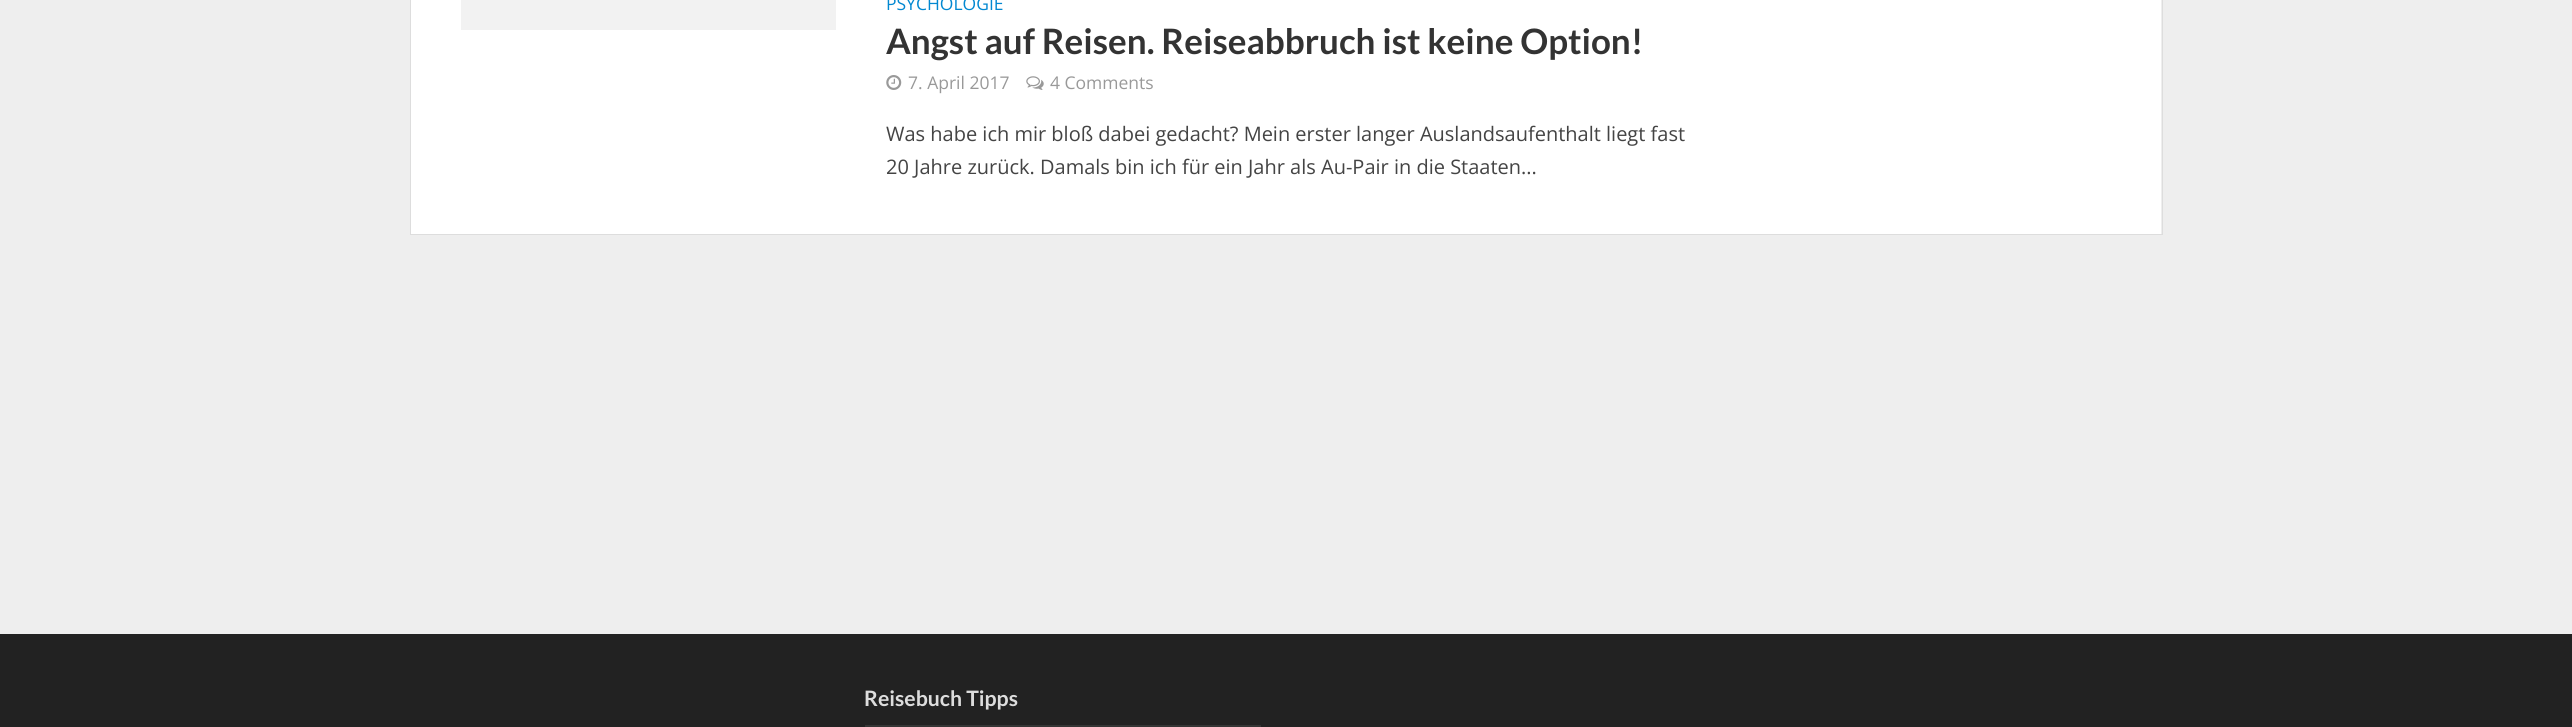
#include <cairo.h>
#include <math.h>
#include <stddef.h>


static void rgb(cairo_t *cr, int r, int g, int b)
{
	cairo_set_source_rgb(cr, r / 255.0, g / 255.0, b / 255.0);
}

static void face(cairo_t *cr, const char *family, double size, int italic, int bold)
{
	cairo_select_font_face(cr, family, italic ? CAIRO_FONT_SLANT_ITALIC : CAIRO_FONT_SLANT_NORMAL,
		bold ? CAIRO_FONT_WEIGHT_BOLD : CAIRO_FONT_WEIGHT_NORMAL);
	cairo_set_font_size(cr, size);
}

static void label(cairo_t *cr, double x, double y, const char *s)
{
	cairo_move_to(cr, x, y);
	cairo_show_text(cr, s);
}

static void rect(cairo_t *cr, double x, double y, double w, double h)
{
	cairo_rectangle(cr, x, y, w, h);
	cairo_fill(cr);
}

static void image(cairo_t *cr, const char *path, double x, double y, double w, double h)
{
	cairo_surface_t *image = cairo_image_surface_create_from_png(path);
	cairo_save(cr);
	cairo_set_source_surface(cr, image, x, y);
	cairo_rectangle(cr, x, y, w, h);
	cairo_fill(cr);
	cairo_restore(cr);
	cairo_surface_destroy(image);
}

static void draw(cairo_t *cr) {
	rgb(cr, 238, 238, 238);
	cairo_paint(cr);
	cairo_rectangle(cr, 410.5, -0.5, 1752, 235);
	rgb(cr, 221, 221, 221);
	cairo_set_line_width(cr, 1);
	cairo_stroke(cr);
	rgb(cr, 255, 255, 255);
	rect(cr, 411, 0, 1750, 234);
	rgb(cr, 242, 242, 242);
	rect(cr, 461, 0, 375, 30);
	face(cr, "Open Sans", 17.5, 0, 0);
	rgb(cr, 2, 136, 209);
	label(cr, 886, 10, "PSYCHOLOGIE");
	face(cr, "Lato", 35, 0, 1);
	rgb(cr, 51, 51, 51);
	label(cr, 886, 54, "Angst auf Reisen. Reiseabbruch ist keine Option!");
	image(cr, "image0.png", 886, 75, 16, 15);
	face(cr, "Open Sans", 17.5, 0, 0);
	rgb(cr, 153, 153, 153);
	label(cr, 908, 89, "7. April 2017");
	image(cr, "image1.png", 1026, 76, 18, 14);
	label(cr, 1050, 89, "4 Comments");
	face(cr, "Open Sans", 20, 0, 0);
	rgb(cr, 68, 68, 68);
	label(cr, 886, 141, "Was habe ich mir bloß dabei gedacht? Mein erster langer Auslandsaufenthalt liegt fast");
	label(cr, 886, 174, "20 Jahre zurück. Damals bin ich für ein Jahr als Au-Pair in die Staaten...");
	rgb(cr, 34, 34, 34);
	rect(cr, 0, 634, 2572, 93);
	face(cr, "Lato", 21.25, 0, 1);
	rgb(cr, 221, 221, 221);
	label(cr, 864, 706, "Reisebuch Tipps");
	rgb(cr, 53, 53, 53);
	rect(cr, 865, 725, 396, 2);
}

int main(void) {
	cairo_surface_t *surface = cairo_image_surface_create(CAIRO_FORMAT_RGB24, 2572, 727);
	cairo_t *cr = cairo_create(surface);
	cairo_font_options_t *options = cairo_font_options_create();
	cairo_font_options_set_hint_metrics(options, CAIRO_HINT_METRICS_OFF);
	cairo_font_options_set_hint_style(options, CAIRO_HINT_STYLE_NONE);
	cairo_set_font_options(cr, options);
	cairo_set_miter_limit(cr, 4);
	draw(cr);
	cairo_surface_write_to_png(surface, "render.png");
	cairo_font_options_destroy(options);
	cairo_destroy(cr);
	cairo_surface_destroy(surface);
	return 0;
}
